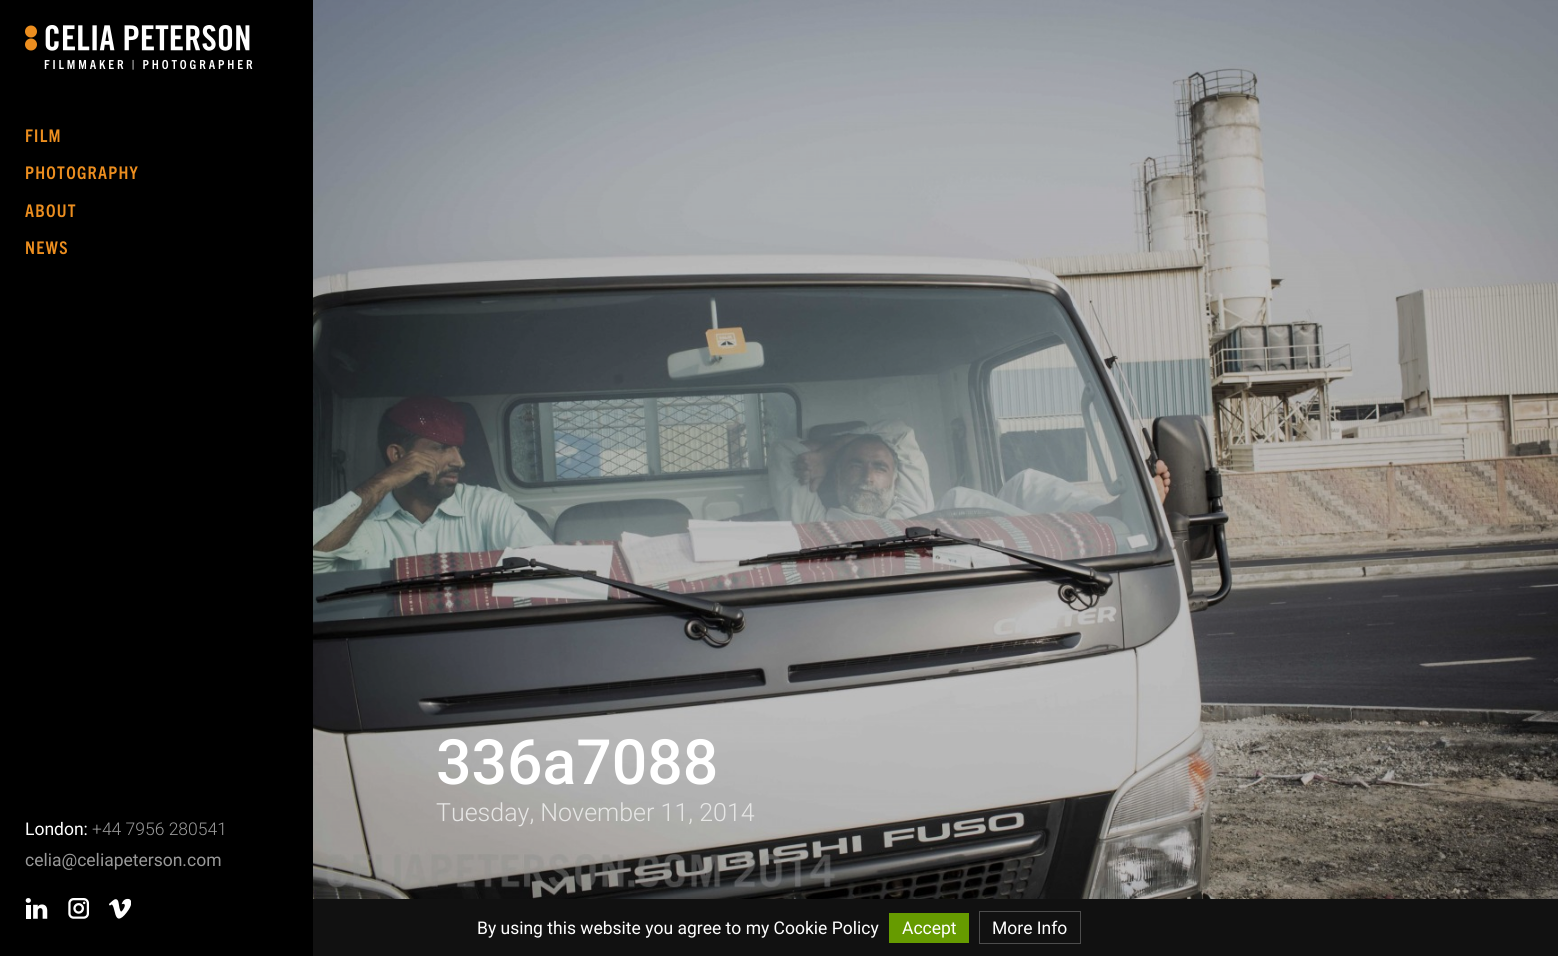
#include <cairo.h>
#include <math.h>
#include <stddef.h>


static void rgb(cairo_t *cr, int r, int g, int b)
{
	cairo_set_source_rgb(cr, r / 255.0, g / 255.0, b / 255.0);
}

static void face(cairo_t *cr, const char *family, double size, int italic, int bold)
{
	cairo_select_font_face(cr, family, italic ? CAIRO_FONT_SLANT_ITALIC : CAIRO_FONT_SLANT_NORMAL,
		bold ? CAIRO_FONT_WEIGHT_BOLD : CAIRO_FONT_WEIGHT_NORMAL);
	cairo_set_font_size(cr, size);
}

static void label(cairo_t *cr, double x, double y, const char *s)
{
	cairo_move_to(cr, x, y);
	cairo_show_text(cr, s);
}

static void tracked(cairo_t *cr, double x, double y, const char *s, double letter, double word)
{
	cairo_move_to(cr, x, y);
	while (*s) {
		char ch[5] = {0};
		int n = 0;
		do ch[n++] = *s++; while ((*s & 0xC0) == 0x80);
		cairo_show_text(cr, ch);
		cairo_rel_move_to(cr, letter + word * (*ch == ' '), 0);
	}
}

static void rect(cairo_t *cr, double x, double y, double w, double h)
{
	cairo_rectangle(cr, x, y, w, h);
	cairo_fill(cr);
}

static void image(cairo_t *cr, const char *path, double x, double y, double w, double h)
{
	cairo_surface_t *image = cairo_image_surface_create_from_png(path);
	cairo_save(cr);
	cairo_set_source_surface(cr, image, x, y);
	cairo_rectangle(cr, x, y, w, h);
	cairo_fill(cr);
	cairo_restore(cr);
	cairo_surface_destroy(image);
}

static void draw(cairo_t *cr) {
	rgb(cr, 255, 255, 255);
	cairo_paint(cr);
	rgb(cr, 0, 0, 0);
	rect(cr, 0, 0, 313, 956);
	image(cr, "image0.png", 25, 25, 225, 26);
	face(cr, "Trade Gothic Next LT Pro", 12.5, 0, 1);
	rgb(cr, 255, 255, 255);
	tracked(cr, 44, 69, "FILMMAKER | PHOTOGRAPHER", 2.9, 0);
	face(cr, "Trade Gothic Next LT Pro", 17.5, 0, 1);
	rgb(cr, 236, 142, 31);
	tracked(cr, 25, 142, "FILM", 1.25, 0);
	tracked(cr, 25, 179, "PHOTOGRAPHY", 1.25, 0);
	tracked(cr, 25, 217, "ABOUT", 1.25, 0);
	tracked(cr, 25, 254, "NEWS", 1.25, 0);
	face(cr, "Roboto", 17.5, 0, 0);
	rgb(cr, 255, 255, 255);
	label(cr, 25, 835, "London:");
	face(cr, "Roboto Light", 17.5, 0, 0);
	rgb(cr, 153, 153, 153);
	label(cr, 92, 835, "+44 7956 280541");
	face(cr, "Roboto", 17.5, 0, 0);
	label(cr, 25, 866, "celia@celiapeterson.com");
	image(cr, "image1.png", 25, 898, 23, 21);
	image(cr, "image2.png", 68, 898, 21, 21);
	image(cr, "image3.png", 109, 898, 22, 21);
	image(cr, "image4.png", 313, 0, 1245, 899);
	face(cr, "Roboto Medium", 62.5, 0, 0);
	rgb(cr, 255, 255, 255);
	label(cr, 436, 784, "336a7088");
	face(cr, "Roboto Light", 25, 0, 0);
	rgb(cr, 230, 230, 229);
	label(cr, 436, 821, "Tuesday, November 11, 2014");
	rgb(cr, 17, 17, 17);
	rect(cr, 313, 899, 1245, 57);
	face(cr, "Roboto", 17.5, 0, 0);
	rgb(cr, 255, 255, 255);
	label(cr, 477, 934, "By using this website you agree to my Cookie Policy");
	rgb(cr, 102, 155, 0);
	rect(cr, 889, 913, 80, 30);
	rgb(cr, 255, 255, 255);
	label(cr, 902, 934, "Accept");
	cairo_rectangle(cr, 979.5, 911.5, 101, 32);
	rgb(cr, 77, 77, 77);
	cairo_set_line_width(cr, 1);
	cairo_stroke(cr);
	rgb(cr, 255, 255, 255);
	label(cr, 992, 934, "More Info");
}

int main(void) {
	cairo_surface_t *surface = cairo_image_surface_create(CAIRO_FORMAT_RGB24, 1558, 956);
	cairo_t *cr = cairo_create(surface);
	cairo_font_options_t *options = cairo_font_options_create();
	cairo_font_options_set_hint_metrics(options, CAIRO_HINT_METRICS_OFF);
	cairo_font_options_set_hint_style(options, CAIRO_HINT_STYLE_NONE);
	cairo_set_font_options(cr, options);
	cairo_set_miter_limit(cr, 4);
	draw(cr);
	cairo_surface_write_to_png(surface, "render.png");
	cairo_font_options_destroy(options);
	cairo_destroy(cr);
	cairo_surface_destroy(surface);
	return 0;
}
